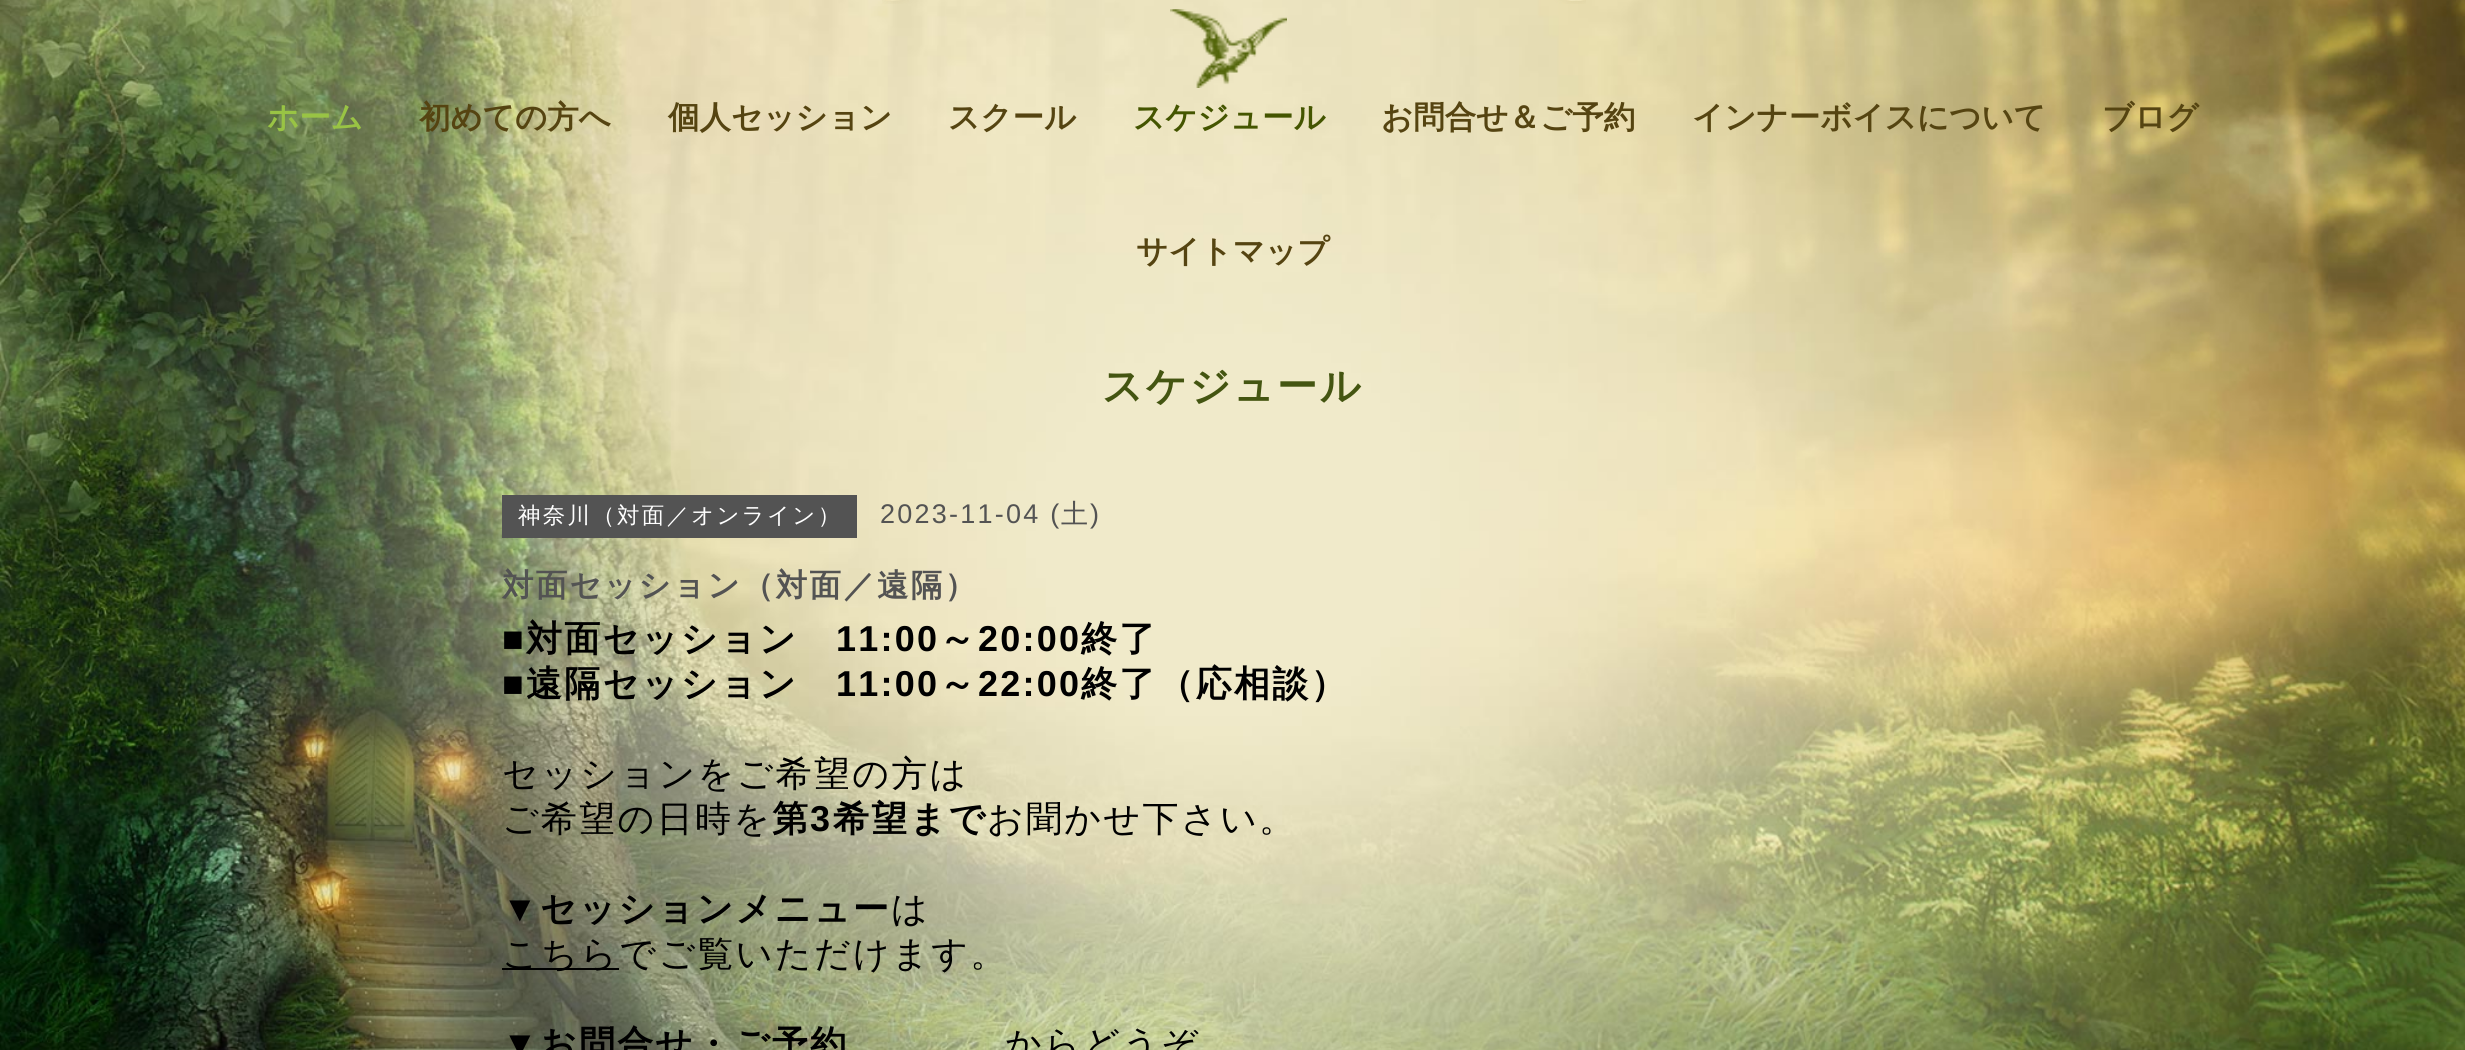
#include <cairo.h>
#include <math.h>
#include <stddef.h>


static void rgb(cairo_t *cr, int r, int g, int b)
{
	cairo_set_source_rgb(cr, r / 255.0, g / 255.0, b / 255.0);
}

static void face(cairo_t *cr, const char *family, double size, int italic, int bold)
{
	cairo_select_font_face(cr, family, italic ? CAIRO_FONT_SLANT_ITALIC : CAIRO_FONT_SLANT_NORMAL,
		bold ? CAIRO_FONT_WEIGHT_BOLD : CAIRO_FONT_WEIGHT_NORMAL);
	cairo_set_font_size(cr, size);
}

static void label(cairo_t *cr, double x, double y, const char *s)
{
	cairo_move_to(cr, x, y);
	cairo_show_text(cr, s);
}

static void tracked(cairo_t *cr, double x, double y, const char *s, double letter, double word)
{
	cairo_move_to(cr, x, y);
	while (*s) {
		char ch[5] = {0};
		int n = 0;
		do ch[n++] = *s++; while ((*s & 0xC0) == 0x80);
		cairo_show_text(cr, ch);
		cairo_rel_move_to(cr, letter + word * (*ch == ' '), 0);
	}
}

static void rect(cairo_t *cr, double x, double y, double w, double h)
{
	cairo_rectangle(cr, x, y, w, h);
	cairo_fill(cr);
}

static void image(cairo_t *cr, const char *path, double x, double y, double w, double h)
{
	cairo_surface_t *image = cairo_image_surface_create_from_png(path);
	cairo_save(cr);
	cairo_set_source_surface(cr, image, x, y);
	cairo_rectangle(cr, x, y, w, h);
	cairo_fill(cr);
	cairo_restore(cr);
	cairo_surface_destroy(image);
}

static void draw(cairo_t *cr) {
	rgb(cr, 255, 255, 255);
	cairo_paint(cr);
	image(cr, "image0.png", 0, 0, 2465, 1050);
	image(cr, "image1.png", 882, 0, 704, 4);
	face(cr, "WenQuanYi Zen Hei", 31.5, 0, 1);
	rgb(cr, 153, 196, 68);
	label(cr, 267, 128, "ホーム");
	rgb(cr, 85, 68, 17);
	label(cr, 419, 128, "初めての方へ");
	label(cr, 668, 128, "個人セッション");
	label(cr, 948, 128, "スクール");
	image(cr, "image2.png", 1170, 9, 117, 79);
	rgb(cr, 68, 85, 0);
	label(cr, 1133, 128, "スケジュール");
	rgb(cr, 85, 68, 17);
	label(cr, 1381, 128, "お問合せ＆ご予約");
	label(cr, 1692, 128, "インナーボイスについて");
	label(cr, 2102, 128, "ブログ");
	label(cr, 1136, 262, "サイトマップ");
	face(cr, "WenQuanYi Zen Hei", 40.5, 0, 1);
	rgb(cr, 68, 85, 17);
	tracked(cr, 1102, 400, "スケジュール", 2.25, 0);
	rgb(cr, 83, 83, 83);
	rect(cr, 502, 495, 355, 43);
	face(cr, "WenQuanYi Zen Hei Medium", 22.5, 0, 0);
	rgb(cr, 255, 255, 255);
	tracked(cr, 518, 523, "神奈川（対面／オンライン）", 2.25, 0);
	face(cr, "Liberation Sans", 27, 0, 0);
	rgb(cr, 83, 83, 83);
	tracked(cr, 880, 523, "2023-11-04 (", 2.25, 0);
	face(cr, "WenQuanYi Zen Hei Medium", 27, 0, 0);
	tracked(cr, 1061, 523, "土", 2.25, 0);
	face(cr, "Liberation Sans", 27, 0, 0);
	tracked(cr, 1090, 523, ")", 2.25, 0);
	face(cr, "WenQuanYi Zen Hei", 31.5, 0, 1);
	tracked(cr, 502, 596, "対面セッション（対面／遠隔）", 2.25, 0);
	face(cr, "Liberation Sans", 36, 0, 1);
	rgb(cr, 0, 0, 0);
	tracked(cr, 502, 651, "■", 2.25, 0);
	face(cr, "WenQuanYi Zen Hei", 36, 0, 1);
	tracked(cr, 526, 651, "対面セッション", 2.25, 0);
	face(cr, "Liberation Sans", 36, 0, 1);
	tracked(cr, 836, 651, "11:00", 2.25, 0);
	face(cr, "WenQuanYi Zen Hei", 36, 0, 1);
	tracked(cr, 939, 651, "～", 2.25, 0);
	face(cr, "Liberation Sans", 36, 0, 1);
	tracked(cr, 978, 651, "20:00", 2.25, 0);
	face(cr, "WenQuanYi Zen Hei", 36, 0, 1);
	tracked(cr, 1081, 651, "終了", 2.25, 0);
	face(cr, "Liberation Sans", 36, 0, 1);
	tracked(cr, 502, 696, "■", 2.25, 0);
	face(cr, "WenQuanYi Zen Hei", 36, 0, 1);
	tracked(cr, 526, 696, "遠隔セッション", 2.25, 0);
	face(cr, "Liberation Sans", 36, 0, 1);
	tracked(cr, 836, 696, "11:00", 2.25, 0);
	face(cr, "WenQuanYi Zen Hei", 36, 0, 1);
	tracked(cr, 939, 696, "～", 2.25, 0);
	face(cr, "Liberation Sans", 36, 0, 1);
	tracked(cr, 978, 696, "22:00", 2.25, 0);
	face(cr, "WenQuanYi Zen Hei", 36, 0, 1);
	tracked(cr, 1081, 696, "終了（応相談）", 2.25, 0);
	face(cr, "WenQuanYi Zen Hei Medium", 36, 0, 0);
	tracked(cr, 502, 786, "セッションをご希望の方は", 2.25, 0);
	tracked(cr, 502, 831, "ご希望の日時を", 2.25, 0);
	face(cr, "WenQuanYi Zen Hei", 36, 0, 1);
	tracked(cr, 772, 831, "第", 2.25, 0);
	face(cr, "Liberation Sans", 36, 0, 1);
	tracked(cr, 810, 831, "3", 2.25, 0);
	face(cr, "WenQuanYi Zen Hei", 36, 0, 1);
	tracked(cr, 833, 831, "希望まで", 2.25, 0);
	face(cr, "WenQuanYi Zen Hei Medium", 36, 0, 0);
	tracked(cr, 987, 831, "お聞かせ下さい。", 2.25, 0);
	face(cr, "Liberation Sans", 36, 0, 0);
	tracked(cr, 502, 921, "▼", 2.25, 0);
	face(cr, "WenQuanYi Zen Hei", 36, 0, 1);
	tracked(cr, 540, 921, "セッションメニュー", 2.25, 0);
	face(cr, "WenQuanYi Zen Hei Medium", 36, 0, 0);
	tracked(cr, 891, 921, "は", 2.25, 0);
	rect(cr, 502, 968, 117, 2);
	tracked(cr, 502, 966, "こちらでご覧いただけます。", 2.25, 0);
	face(cr, "Liberation Sans", 36, 0, 0);
	tracked(cr, 502, 1056, "▼", 2.25, 0);
	face(cr, "WenQuanYi Zen Hei", 36, 0, 1);
	tracked(cr, 540, 1056, "お問合せ・ご予約", 2.25, 0);
	face(cr, "WenQuanYi Zen Hei Medium", 36, 0, 0);
	tracked(cr, 1005, 1056, "からどうぞ", 2.25, 0);
}

int main(void) {
	cairo_surface_t *surface = cairo_image_surface_create(CAIRO_FORMAT_RGB24, 2465, 1050);
	cairo_t *cr = cairo_create(surface);
	cairo_font_options_t *options = cairo_font_options_create();
	cairo_font_options_set_hint_metrics(options, CAIRO_HINT_METRICS_OFF);
	cairo_font_options_set_hint_style(options, CAIRO_HINT_STYLE_NONE);
	cairo_set_font_options(cr, options);
	cairo_set_miter_limit(cr, 4);
	draw(cr);
	cairo_surface_write_to_png(surface, "render.png");
	cairo_font_options_destroy(options);
	cairo_destroy(cr);
	cairo_surface_destroy(surface);
	return 0;
}
